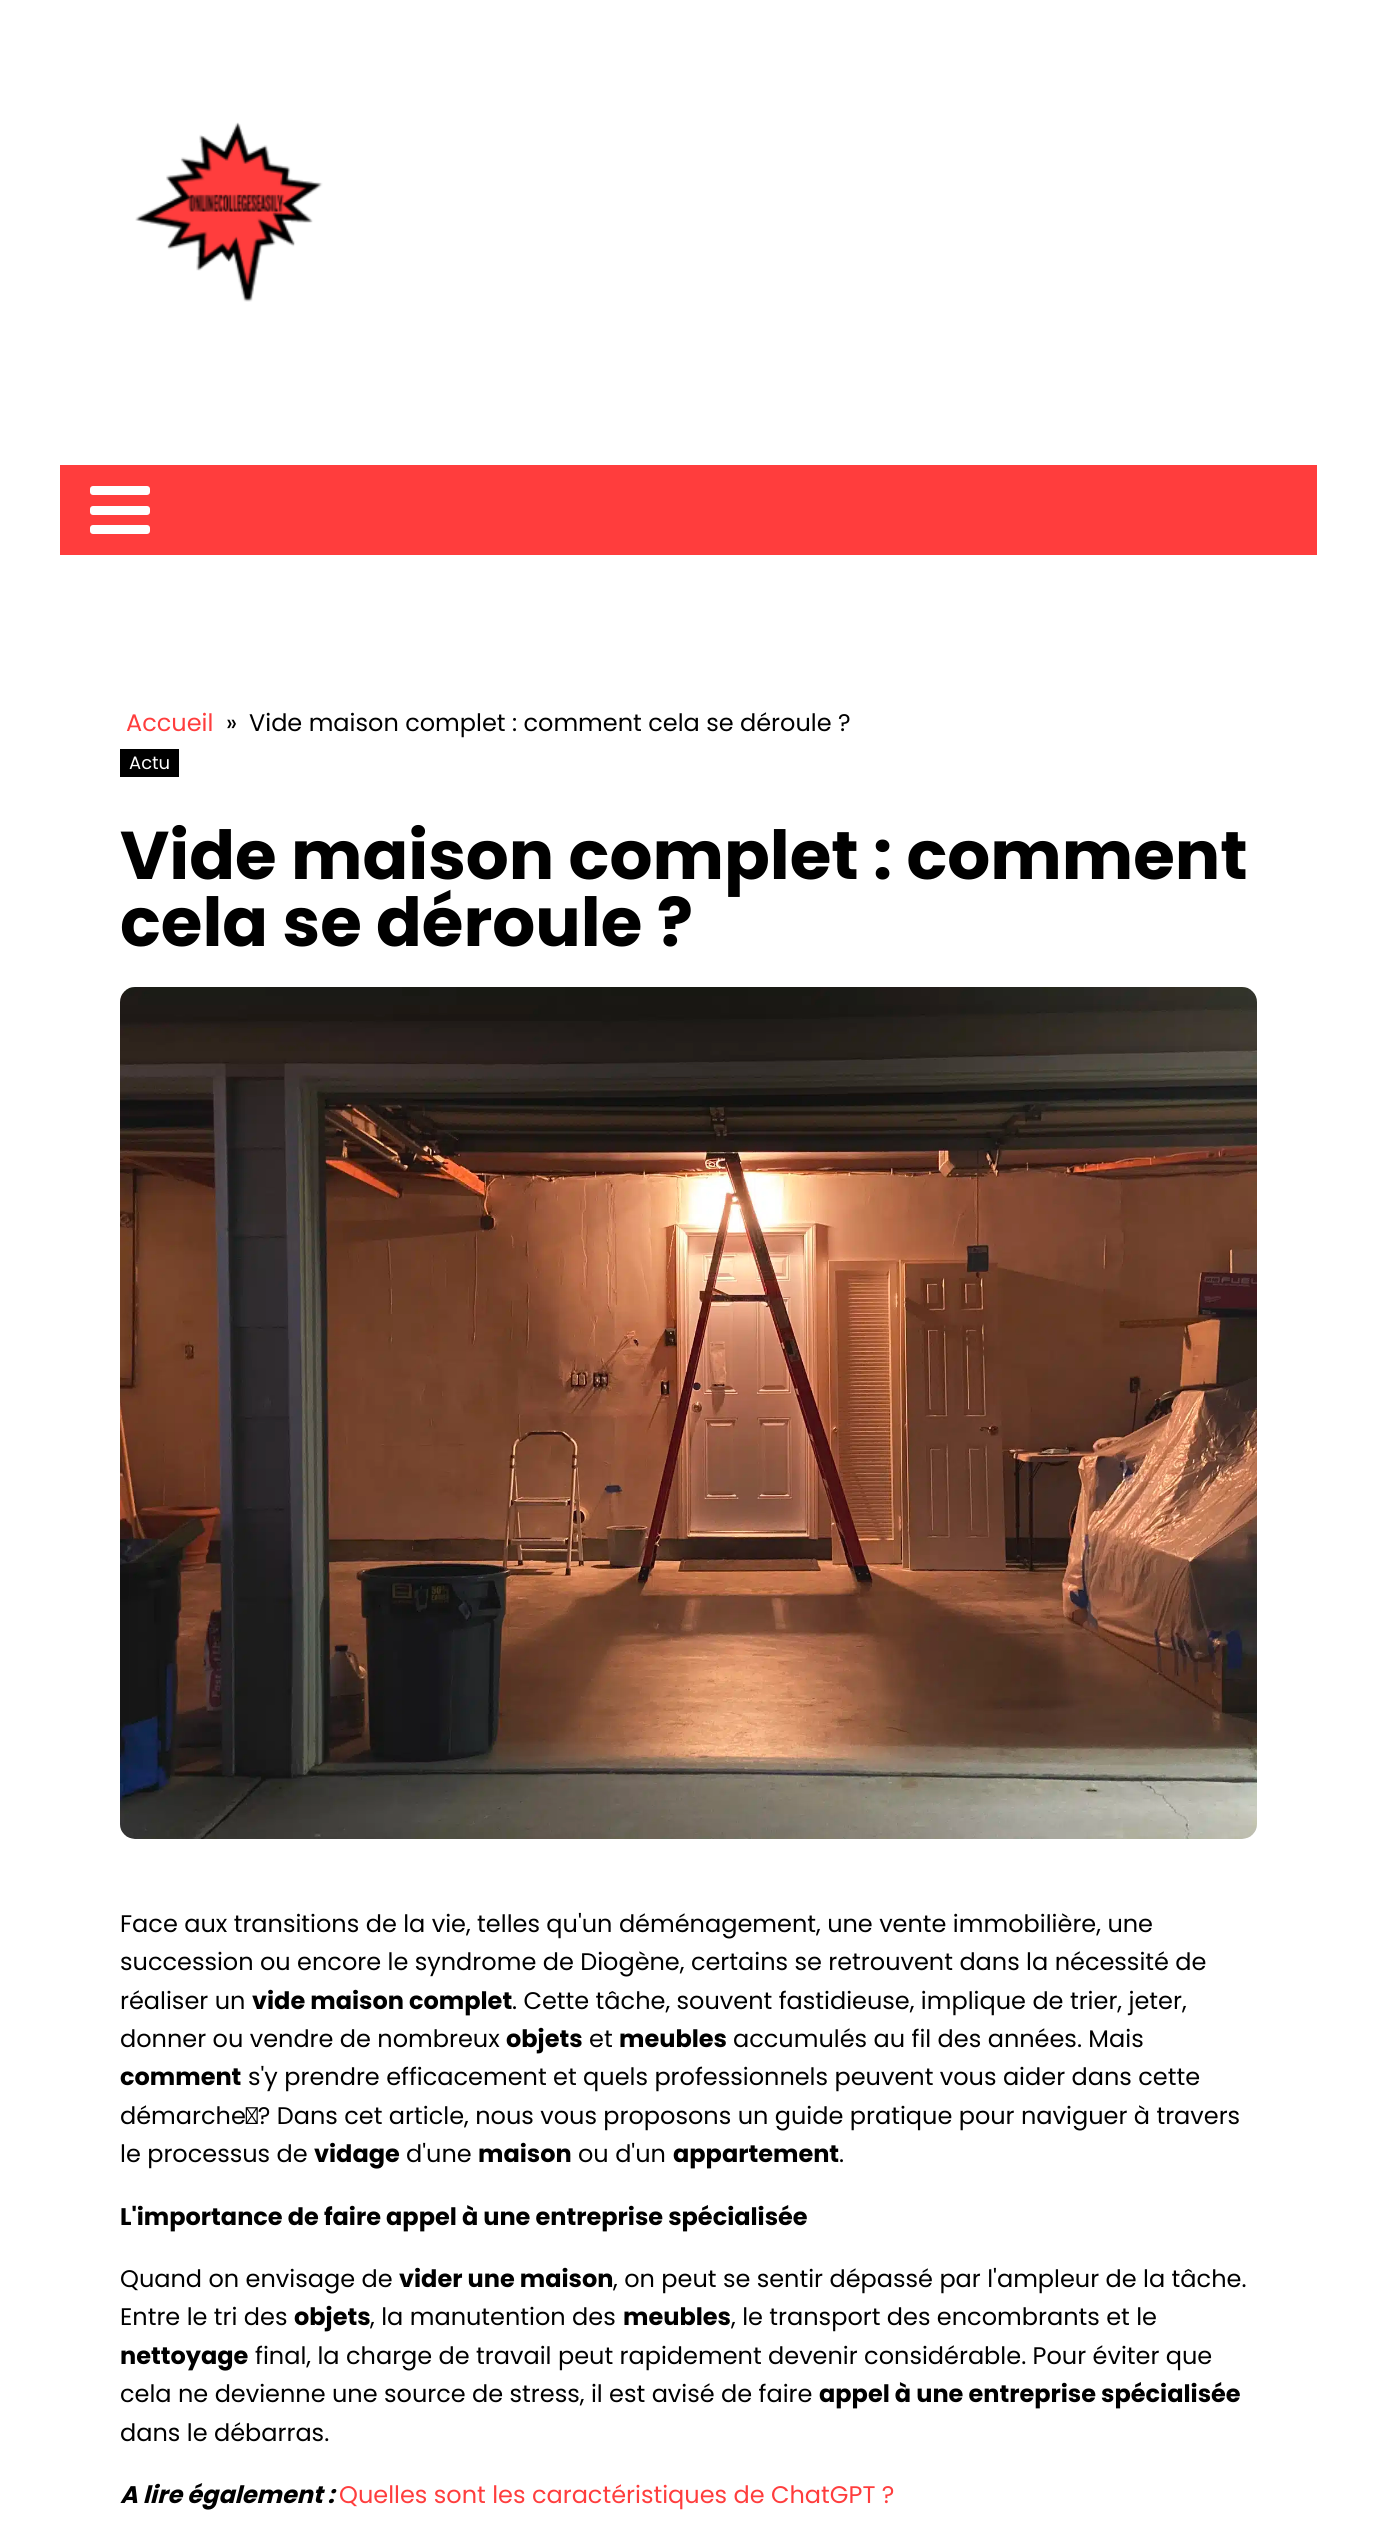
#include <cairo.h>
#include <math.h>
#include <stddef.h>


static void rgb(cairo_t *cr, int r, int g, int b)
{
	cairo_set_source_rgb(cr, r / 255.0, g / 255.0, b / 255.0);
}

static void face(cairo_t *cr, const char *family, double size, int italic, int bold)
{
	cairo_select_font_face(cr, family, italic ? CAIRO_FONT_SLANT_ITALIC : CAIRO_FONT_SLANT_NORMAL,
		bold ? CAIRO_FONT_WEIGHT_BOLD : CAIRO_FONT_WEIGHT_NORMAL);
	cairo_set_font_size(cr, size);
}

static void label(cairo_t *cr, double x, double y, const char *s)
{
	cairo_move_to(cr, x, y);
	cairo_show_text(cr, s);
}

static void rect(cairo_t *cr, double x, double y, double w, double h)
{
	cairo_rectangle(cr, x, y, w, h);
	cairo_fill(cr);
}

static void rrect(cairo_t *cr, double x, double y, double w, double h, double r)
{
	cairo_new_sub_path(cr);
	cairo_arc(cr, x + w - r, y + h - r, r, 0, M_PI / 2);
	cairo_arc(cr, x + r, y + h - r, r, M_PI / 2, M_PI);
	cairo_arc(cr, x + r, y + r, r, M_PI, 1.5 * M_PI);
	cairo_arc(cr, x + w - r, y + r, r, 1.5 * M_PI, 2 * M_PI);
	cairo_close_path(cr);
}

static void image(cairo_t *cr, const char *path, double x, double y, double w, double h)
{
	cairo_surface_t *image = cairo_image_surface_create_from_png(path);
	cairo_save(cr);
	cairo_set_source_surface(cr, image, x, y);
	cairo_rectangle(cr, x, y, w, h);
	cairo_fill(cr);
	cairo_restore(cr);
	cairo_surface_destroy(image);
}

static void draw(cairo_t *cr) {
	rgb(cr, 255, 255, 255);
	cairo_paint(cr);
	image(cr, "image0.png", 135, 122, 188, 180);
	rgb(cr, 255, 61, 61);
	rect(cr, 60, 465, 1257, 90);
	rgb(cr, 255, 255, 255);
	rrect(cr, 90, 486, 60, 9, 3);
	cairo_fill(cr);
	rrect(cr, 90, 506, 60, 9, 3);
	cairo_fill(cr);
	rrect(cr, 90, 525, 60, 9, 3);
	cairo_fill(cr);
	face(cr, "Poppins", 24, 0, 0);
	rgb(cr, 255, 61, 61);
	label(cr, 126, 731, "Accueil");
	rgb(cr, 0, 0, 0);
	label(cr, 226, 731, "»");
	label(cr, 249, 731, "Vide maison complet : comment cela se déroule ?");
	rect(cr, 120, 749, 59, 28);
	face(cr, "Poppins", 18, 0, 0);
	rgb(cr, 255, 255, 255);
	label(cr, 129, 769, "Actu");
	face(cr, "Poppins", 67.5, 0, 1);
	rgb(cr, 0, 0, 0);
	label(cr, 120, 879, "Vide maison complet : comment");
	label(cr, 120, 946, "cela se déroule ?");
	image(cr, "image1.png", 120, 987, 1137, 852);
	face(cr, "Poppins", 24, 0, 0);
	label(cr, 120, 1932, "Face aux transitions de la vie, telles qu'un déménagement, une vente immobilière, une");
	label(cr, 120, 1970, "succession ou encore le syndrome de Diogène, certains se retrouvent dans la nécessité de");
	label(cr, 120, 2009, "réaliser un");
	face(cr, "Poppins", 24, 0, 1);
	label(cr, 252, 2009, "vide maison complet");
	face(cr, "Poppins", 24, 0, 0);
	label(cr, 512, 2009, ". Cette tâche, souvent fastidieuse, implique de trier, jeter,");
	label(cr, 120, 2047, "donner ou vendre de nombreux");
	face(cr, "Poppins", 24, 0, 1);
	label(cr, 506, 2047, "objets");
	face(cr, "Poppins", 24, 0, 0);
	label(cr, 589, 2047, "et");
	face(cr, "Poppins", 24, 0, 1);
	label(cr, 619, 2047, "meubles");
	face(cr, "Poppins", 24, 0, 0);
	label(cr, 733, 2047, "accumulés au fil des années. Mais");
	face(cr, "Poppins", 24, 0, 1);
	label(cr, 120, 2085, "comment");
	face(cr, "Poppins", 24, 0, 0);
	label(cr, 248, 2085, "s'y prendre efficacement et quels professionnels peuvent vous aider dans cette");
	label(cr, 120, 2124, "démarche ? Dans cet article, nous vous proposons un guide pratique pour naviguer à travers");
	label(cr, 120, 2162, "le processus de");
	face(cr, "Poppins", 24, 0, 1);
	label(cr, 314, 2162, "vidage");
	face(cr, "Poppins", 24, 0, 0);
	label(cr, 406, 2162, "d'une");
	face(cr, "Poppins", 24, 0, 1);
	label(cr, 478, 2162, "maison");
	face(cr, "Poppins", 24, 0, 0);
	label(cr, 578, 2162, "ou d'un");
	face(cr, "Poppins", 24, 0, 1);
	label(cr, 673, 2162, "appartement");
	face(cr, "Poppins", 24, 0, 0);
	label(cr, 839, 2162, ".");
	face(cr, "Poppins", 24, 0, 1);
	label(cr, 120, 2225, "L'importance de faire appel à une entreprise spécialisée");
	face(cr, "Poppins", 24, 0, 0);
	label(cr, 120, 2287, "Quand on envisage de");
	face(cr, "Poppins", 24, 0, 1);
	label(cr, 399, 2287, "vider une maison");
	face(cr, "Poppins", 24, 0, 0);
	label(cr, 613, 2287, ", on peut se sentir dépassé par l'ampleur de la tâche.");
	label(cr, 120, 2325, "Entre le tri des");
	face(cr, "Poppins", 24, 0, 1);
	label(cr, 294, 2325, "objets");
	face(cr, "Poppins", 24, 0, 0);
	label(cr, 370, 2325, ", la manutention des");
	face(cr, "Poppins", 24, 0, 1);
	label(cr, 623, 2325, "meubles");
	face(cr, "Poppins", 24, 0, 0);
	label(cr, 731, 2325, ", le transport des encombrants et le");
	face(cr, "Poppins", 24, 0, 1);
	label(cr, 120, 2364, "nettoyage");
	face(cr, "Poppins", 24, 0, 0);
	label(cr, 255, 2364, "final, la charge de travail peut rapidement devenir considérable. Pour éviter que");
	label(cr, 120, 2402, "cela ne devienne une source de stress, il est avisé de faire");
	face(cr, "Poppins", 24, 0, 1);
	label(cr, 819, 2402, "appel à une entreprise spécialisée");
	face(cr, "Poppins", 24, 0, 0);
	label(cr, 120, 2441, "dans le débarras.");
	face(cr, "Poppins", 24, 1, 1);
	label(cr, 120, 2503, "A lire également :");
	face(cr, "Poppins", 24, 0, 0);
	rgb(cr, 255, 61, 61);
	label(cr, 339, 2503, "Quelles sont les caractéristiques de ChatGPT ?");
}

int main(void) {
	cairo_surface_t *surface = cairo_image_surface_create(CAIRO_FORMAT_RGB24, 1376, 2539);
	cairo_t *cr = cairo_create(surface);
	cairo_font_options_t *options = cairo_font_options_create();
	cairo_font_options_set_hint_metrics(options, CAIRO_HINT_METRICS_OFF);
	cairo_font_options_set_hint_style(options, CAIRO_HINT_STYLE_NONE);
	cairo_set_font_options(cr, options);
	cairo_set_miter_limit(cr, 4);
	draw(cr);
	cairo_surface_write_to_png(surface, "render.png");
	cairo_font_options_destroy(options);
	cairo_destroy(cr);
	cairo_surface_destroy(surface);
	return 0;
}
